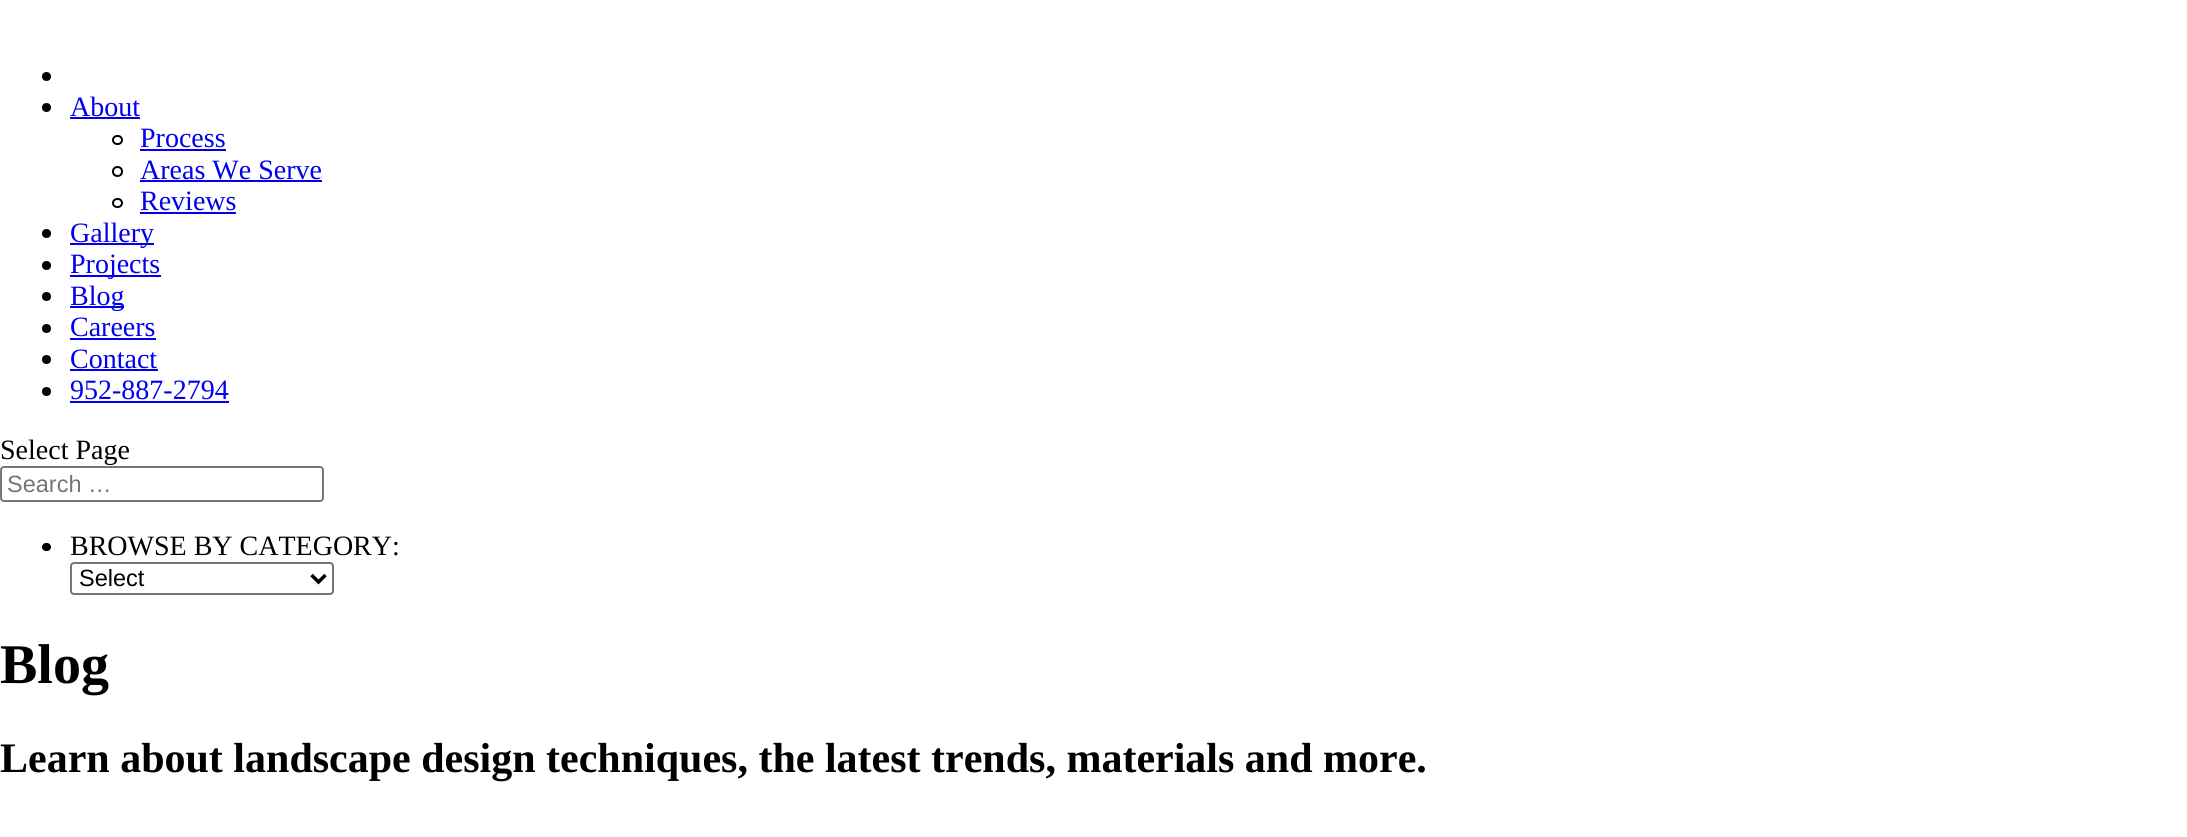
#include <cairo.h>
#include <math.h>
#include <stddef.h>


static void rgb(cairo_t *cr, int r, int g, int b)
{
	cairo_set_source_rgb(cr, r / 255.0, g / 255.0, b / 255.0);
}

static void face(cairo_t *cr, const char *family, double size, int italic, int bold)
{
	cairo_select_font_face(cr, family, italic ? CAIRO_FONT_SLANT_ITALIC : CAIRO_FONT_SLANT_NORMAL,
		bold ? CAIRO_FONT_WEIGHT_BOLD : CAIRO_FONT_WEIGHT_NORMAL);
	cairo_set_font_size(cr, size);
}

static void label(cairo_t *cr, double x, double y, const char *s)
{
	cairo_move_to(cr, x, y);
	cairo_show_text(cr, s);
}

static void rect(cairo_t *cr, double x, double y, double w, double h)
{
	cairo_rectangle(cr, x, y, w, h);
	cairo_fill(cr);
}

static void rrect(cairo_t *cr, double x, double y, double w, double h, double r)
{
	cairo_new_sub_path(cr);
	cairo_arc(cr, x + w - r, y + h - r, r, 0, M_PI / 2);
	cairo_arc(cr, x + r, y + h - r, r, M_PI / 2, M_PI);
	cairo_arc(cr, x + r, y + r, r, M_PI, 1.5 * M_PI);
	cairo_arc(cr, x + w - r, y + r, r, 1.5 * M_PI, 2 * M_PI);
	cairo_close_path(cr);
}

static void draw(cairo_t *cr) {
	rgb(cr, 255, 255, 255);
	cairo_paint(cr);
	rgb(cr, 0, 0, 0);
	cairo_arc(cr, 46.5, 76.5, 4.5, 0, 2 * M_PI);
	cairo_fill(cr);
	cairo_arc(cr, 46.5, 107.5, 4.5, 0, 2 * M_PI);
	cairo_fill(cr);
	face(cr, "Liberation Serif", 28, 0, 0);
	rgb(cr, 0, 0, 238);
	label(cr, 70, 116, "About");
	rect(cr, 70, 117, 70, 2);
	rrect(cr, 113, 136, 9, 8, 4);
	rgb(cr, 0, 0, 0);
	cairo_stroke(cr);
	rgb(cr, 0, 0, 238);
	label(cr, 140, 147, "Process");
	rect(cr, 140, 149, 86, 2);
	cairo_new_path(cr);
	cairo_arc(cr, 117.5, 171.5, 4.5, 0, 2 * M_PI);
	rgb(cr, 0, 0, 0);
	cairo_stroke(cr);
	rgb(cr, 0, 0, 238);
	label(cr, 140, 179, "Areas We Serve");
	rect(cr, 140, 180, 182, 2);
	rrect(cr, 113, 199, 9, 8, 4);
	rgb(cr, 0, 0, 0);
	cairo_stroke(cr);
	rgb(cr, 0, 0, 238);
	label(cr, 140, 210, "Reviews");
	rect(cr, 140, 212, 96, 2);
	rgb(cr, 0, 0, 0);
	cairo_new_path(cr);
	cairo_arc(cr, 46.5, 233.5, 4.5, 0, 2 * M_PI);
	cairo_fill(cr);
	rgb(cr, 0, 0, 238);
	rect(cr, 70, 243, 84, 2);
	label(cr, 70, 242, "Gallery");
	rgb(cr, 0, 0, 0);
	cairo_new_path(cr);
	cairo_arc(cr, 46.5, 265.5, 4.5, 0, 2 * M_PI);
	cairo_fill(cr);
	rgb(cr, 0, 0, 238);
	rect(cr, 70, 275, 91, 2);
	label(cr, 70, 273, "Projects");
	rgb(cr, 0, 0, 0);
	cairo_new_path(cr);
	cairo_arc(cr, 46.5, 296.5, 4.5, 0, 2 * M_PI);
	cairo_fill(cr);
	rgb(cr, 0, 0, 238);
	rect(cr, 70, 306, 54, 2);
	label(cr, 70, 305, "Blog");
	rgb(cr, 0, 0, 0);
	cairo_new_path(cr);
	cairo_arc(cr, 46.5, 328.5, 4.5, 0, 2 * M_PI);
	cairo_fill(cr);
	rgb(cr, 0, 0, 238);
	label(cr, 70, 336, "Careers");
	rect(cr, 70, 338, 86, 2);
	rgb(cr, 0, 0, 0);
	cairo_new_path(cr);
	cairo_arc(cr, 46.5, 359.5, 4.5, 0, 2 * M_PI);
	cairo_fill(cr);
	rgb(cr, 0, 0, 238);
	label(cr, 70, 368, "Contact");
	rect(cr, 70, 369, 88, 2);
	rgb(cr, 0, 0, 0);
	cairo_new_path(cr);
	cairo_arc(cr, 46.5, 391.5, 4.5, 0, 2 * M_PI);
	cairo_fill(cr);
	rgb(cr, 0, 0, 238);
	label(cr, 70, 399, "952-887-2794");
	rect(cr, 70, 401, 159, 2);
	rgb(cr, 0, 0, 0);
	label(cr, 0, 459, "Select Page");
	rrect(cr, 1, 467, 322, 34, 3);
	rgb(cr, 118, 118, 118);
	cairo_stroke(cr);
	face(cr, "Liberation Sans", 23.5, 0, 0);
	rgb(cr, 117, 117, 117);
	label(cr, 7, 492, "Search …");
	rgb(cr, 0, 0, 0);
	rrect(cr, 42, 543, 9, 8, 4);
	cairo_fill(cr);
	face(cr, "Liberation Serif", 28, 0, 0);
	label(cr, 70, 555, "BROWSE BY CATEGORY:");
	rrect(cr, 71, 563, 262, 31, 3);
	rgb(cr, 118, 118, 118);
	cairo_stroke(cr);
	cairo_new_path(cr);
	cairo_move_to(cr, 311.5, 575);
	cairo_line_to(cr, 318.5, 582);
	cairo_line_to(cr, 325.5, 575);
	rgb(cr, 0, 0, 0);
	cairo_set_line_width(cr, 3.5);
	cairo_stroke(cr);
	face(cr, "Liberation Sans", 23.5, 0, 0);
	label(cr, 79, 586, "Select");
	face(cr, "Liberation Serif", 56, 0, 1);
	label(cr, 0, 683, "Blog");
	face(cr, "Liberation Serif", 42, 0, 1);
	label(cr, 0, 772, "Learn about landscape design techniques, the latest trends, materials and more.");
}

int main(void) {
	cairo_surface_t *surface = cairo_image_surface_create(CAIRO_FORMAT_RGB24, 2187, 837);
	cairo_t *cr = cairo_create(surface);
	cairo_font_options_t *options = cairo_font_options_create();
	cairo_font_options_set_hint_metrics(options, CAIRO_HINT_METRICS_OFF);
	cairo_font_options_set_hint_style(options, CAIRO_HINT_STYLE_NONE);
	cairo_set_font_options(cr, options);
	cairo_set_miter_limit(cr, 4);
	draw(cr);
	cairo_surface_write_to_png(surface, "render.png");
	cairo_font_options_destroy(options);
	cairo_destroy(cr);
	cairo_surface_destroy(surface);
	return 0;
}
